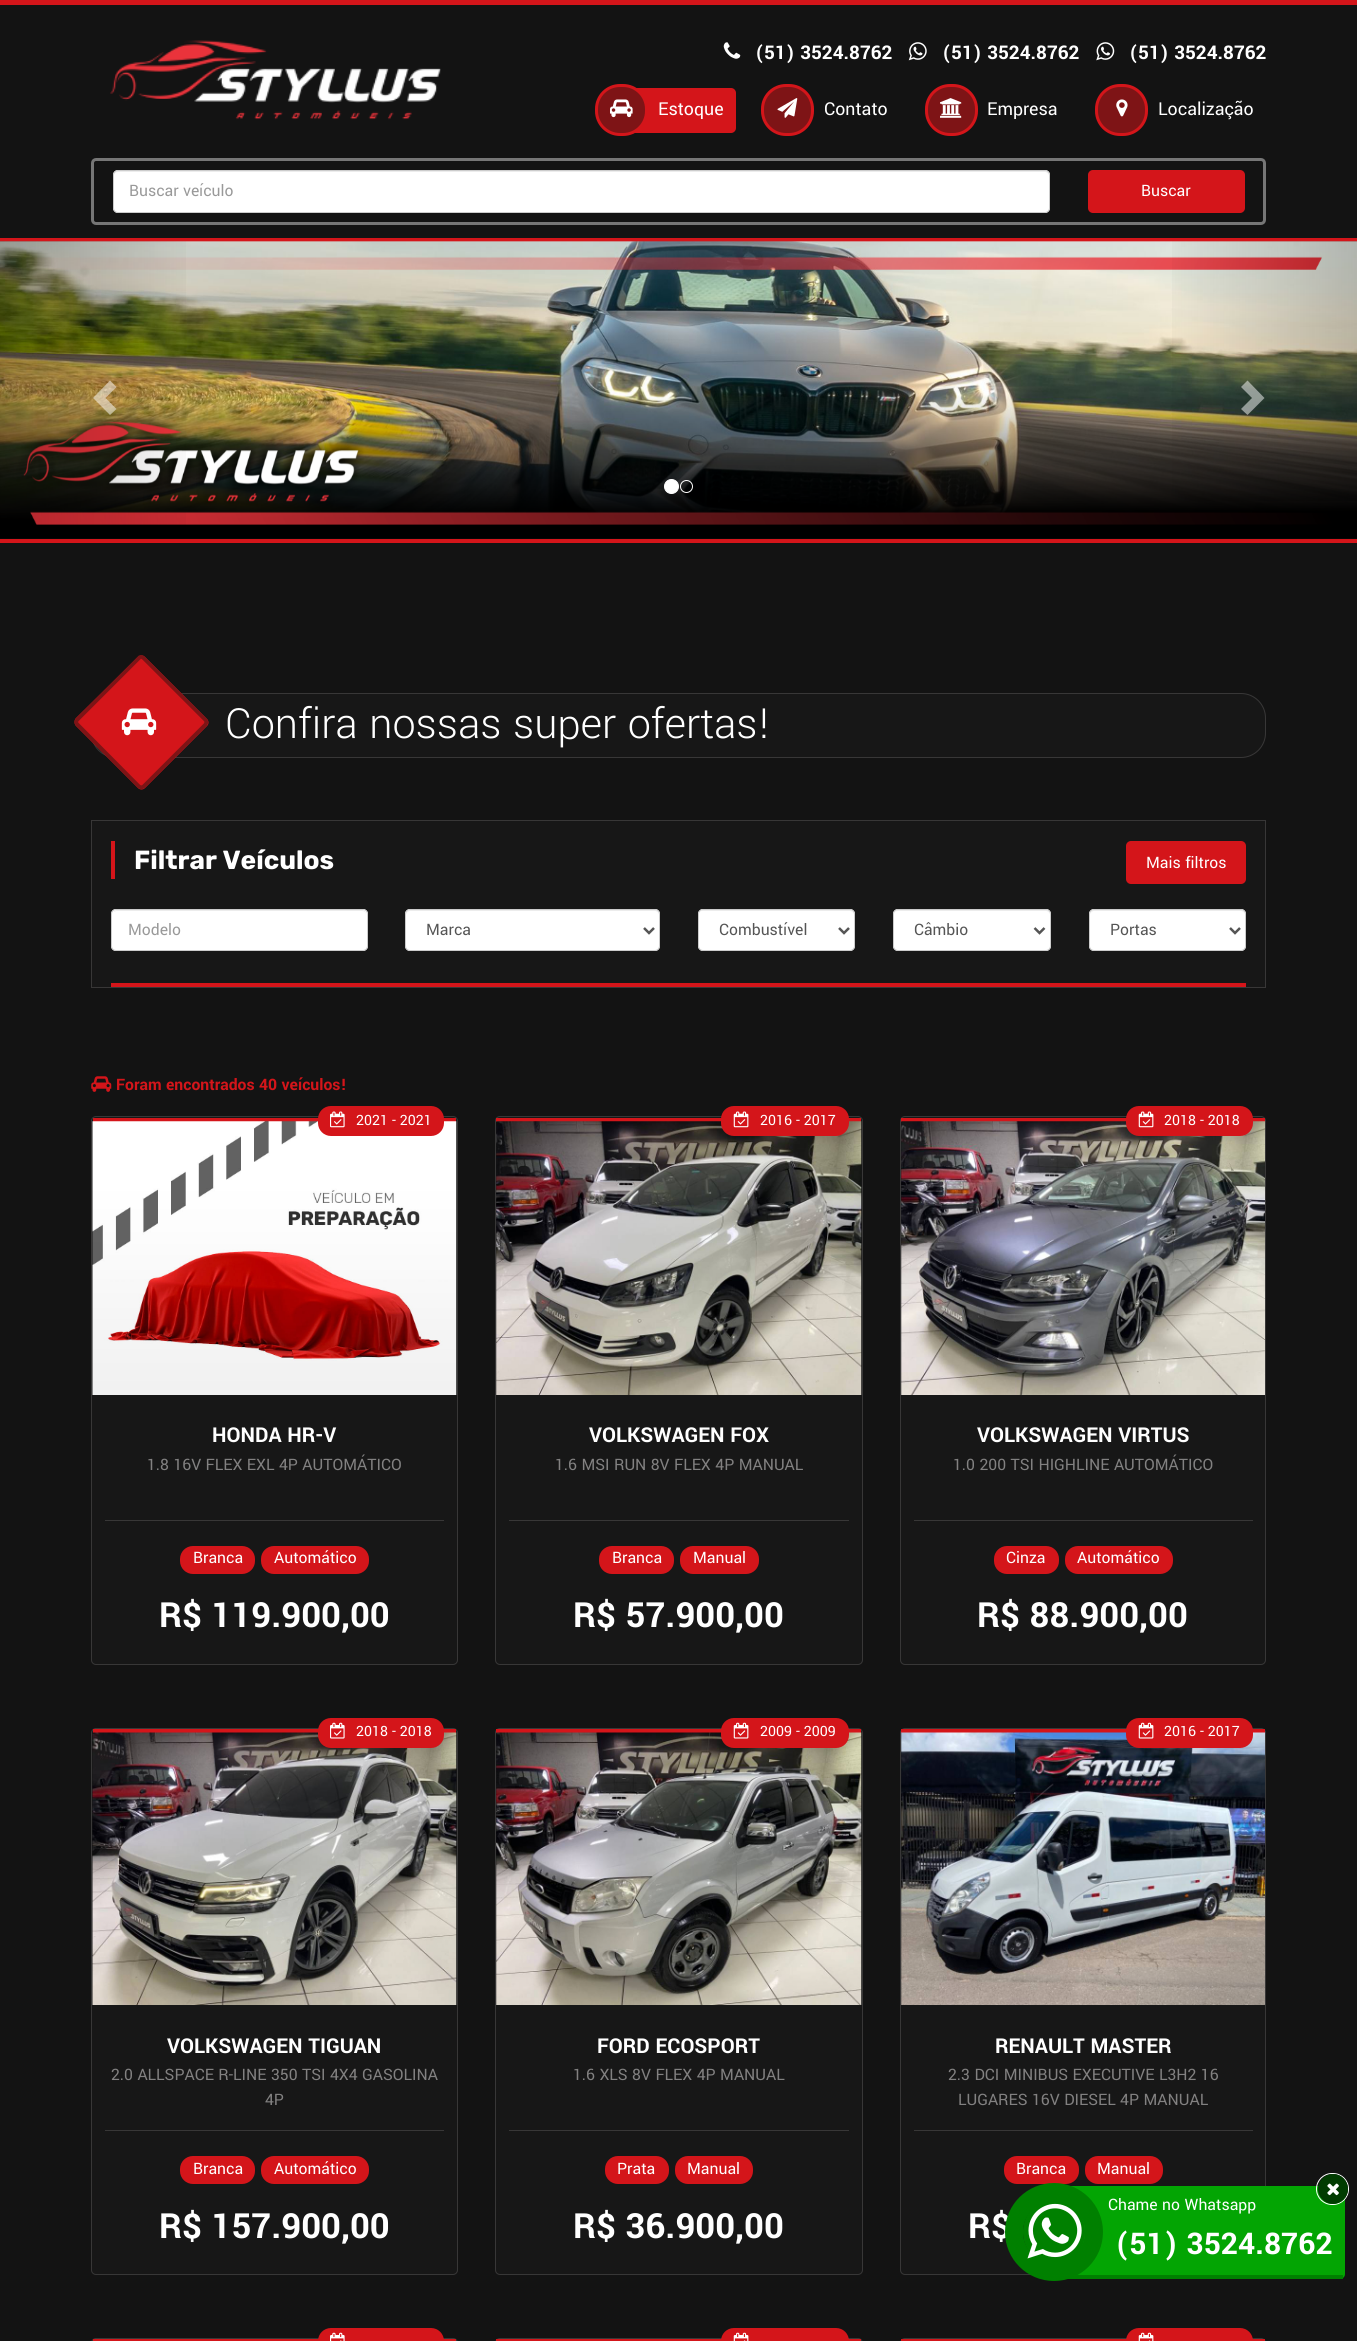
#include <cairo.h>
#include <math.h>
#include <stddef.h>


static void rgb(cairo_t *cr, int r, int g, int b)
{
	cairo_set_source_rgb(cr, r / 255.0, g / 255.0, b / 255.0);
}

static void face(cairo_t *cr, const char *family, double size, int italic, int bold)
{
	cairo_select_font_face(cr, family, italic ? CAIRO_FONT_SLANT_ITALIC : CAIRO_FONT_SLANT_NORMAL,
		bold ? CAIRO_FONT_WEIGHT_BOLD : CAIRO_FONT_WEIGHT_NORMAL);
	cairo_set_font_size(cr, size);
}

static void label(cairo_t *cr, double x, double y, const char *s)
{
	cairo_move_to(cr, x, y);
	cairo_show_text(cr, s);
}

static void rect(cairo_t *cr, double x, double y, double w, double h)
{
	cairo_rectangle(cr, x, y, w, h);
	cairo_fill(cr);
}

static void rrect(cairo_t *cr, double x, double y, double w, double h, double r)
{
	cairo_new_sub_path(cr);
	cairo_arc(cr, x + w - r, y + h - r, r, 0, M_PI / 2);
	cairo_arc(cr, x + r, y + h - r, r, M_PI / 2, M_PI);
	cairo_arc(cr, x + r, y + r, r, M_PI, 1.5 * M_PI);
	cairo_arc(cr, x + w - r, y + r, r, 1.5 * M_PI, 2 * M_PI);
	cairo_close_path(cr);
}

static void image(cairo_t *cr, const char *path, double x, double y, double w, double h)
{
	cairo_surface_t *image = cairo_image_surface_create_from_png(path);
	cairo_save(cr);
	cairo_set_source_surface(cr, image, x, y);
	cairo_rectangle(cr, x, y, w, h);
	cairo_fill(cr);
	cairo_restore(cr);
	cairo_surface_destroy(image);
}

static void draw(cairo_t *cr) {
	cairo_pattern_t *gradient;
	rgb(cr, 19, 19, 19);
	cairo_paint(cr);
	rgb(cr, 212, 21, 26);
	rect(cr, 0, 0, 1357, 5);
	image(cr, "image0.png", 110, 40, 331, 80);
	image(cr, "image1.png", 723, 42, 18, 17);
	face(cr, "Yantramanav", 21, 0, 1);
	rgb(cr, 255, 255, 255);
	label(cr, 755, 59, "(51) 3524.8762");
	image(cr, "image2.png", 908, 42, 19, 19);
	label(cr, 942, 59, "(51) 3524.8762");
	image(cr, "image3.png", 1096, 42, 19, 19);
	label(cr, 1129, 59, "(51) 3524.8762");
	rgb(cr, 212, 21, 26);
	rrect(cr, 613, 88, 123, 45, 5);
	cairo_fill(cr);
	rgb(cr, 126, 20, 22);
	rrect(cr, 596.5, 85.5, 50, 49, 23.5);
	cairo_fill_preserve(cr);
	rgb(cr, 212, 21, 26);
	cairo_set_line_width(cr, 3);
	cairo_stroke(cr);
	image(cr, "image4.png", 610, 99, 23, 19);
	face(cr, "Yantramanav", 19.75, 0, 0);
	rgb(cr, 255, 255, 255);
	label(cr, 658, 115, "Estoque");
	rgb(cr, 126, 20, 22);
	rrect(cr, 762.5, 85.5, 50, 49, 23.5);
	cairo_fill_preserve(cr);
	rgb(cr, 212, 21, 26);
	cairo_stroke(cr);
	image(cr, "image5.png", 777, 98, 21, 20);
	rgb(cr, 255, 255, 255);
	label(cr, 824, 115, "Contato");
	rgb(cr, 126, 20, 22);
	rrect(cr, 926.5, 85.5, 50, 49, 23.5);
	cairo_fill_preserve(cr);
	rgb(cr, 212, 21, 26);
	cairo_stroke(cr);
	image(cr, "image6.png", 940, 98, 22, 20);
	rgb(cr, 255, 255, 255);
	label(cr, 987, 115, "Empresa");
	rgb(cr, 126, 20, 22);
	rrect(cr, 1096.5, 85.5, 50, 49, 23.5);
	cairo_fill_preserve(cr);
	rgb(cr, 212, 21, 26);
	cairo_stroke(cr);
	image(cr, "image7.png", 1116, 99, 12, 18);
	rgb(cr, 255, 255, 255);
	label(cr, 1158, 115, "Localização");
	rrect(cr, 92.5, 159.5, 1172, 64, 3.5);
	rgb(cr, 118, 118, 118);
	cairo_stroke(cr);
	rgb(cr, 255, 255, 255);
	rrect(cr, 113, 170, 937, 43, 5);
	cairo_fill(cr);
	rgb(cr, 236, 236, 236);
	cairo_new_path(cr);
	cairo_move_to(cr, 118, 172);
	cairo_line_to(cr, 1045, 172);
	cairo_curve_to(cr, 1047, 172, 1049, 174, 1049, 176);
	cairo_curve_to(cr, 1049, 173, 1048, 171, 1045, 171);
	cairo_line_to(cr, 118, 171);
	cairo_curve_to(cr, 115, 171, 114, 173, 114, 176);
	cairo_curve_to(cr, 114, 174, 115, 172, 118, 172);
	cairo_close_path(cr);
	cairo_fill(cr);
	rrect(cr, 113.5, 170.5, 936, 42, 4.5);
	rgb(cr, 204, 204, 204);
	cairo_set_line_width(cr, 1);
	cairo_stroke(cr);
	face(cr, "Yantramanav", 17.5, 0, 0);
	rgb(cr, 153, 153, 153);
	label(cr, 129, 196, "Buscar veículo");
	rgb(cr, 212, 21, 26);
	rrect(cr, 1088, 170, 157, 43, 5);
	cairo_fill(cr);
	rgb(cr, 255, 255, 255);
	label(cr, 1141, 196, "Buscar");
	rgb(cr, 212, 21, 26);
	rect(cr, 0, 238, 1357, 4);
	rect(cr, 0, 539, 1357, 4);
	image(cr, "image8.png", 0, 241, 1357, 298);
	gradient = cairo_pattern_create_linear(0, 390, 204, 390);
	cairo_pattern_add_color_stop_rgba(gradient, 0, 0, 0, 0, 0.25);
	cairo_pattern_add_color_stop_rgba(gradient, 1, 0, 0, 0, 0);
	cairo_set_source(cr, gradient);
	cairo_pattern_destroy(gradient);
	rect(cr, 0, 241, 186, 284);
	cairo_set_source_rgba(cr, 1, 1, 1, 0.5);
	cairo_new_path(cr);
	cairo_move_to(cr, 116.5, 387);
	cairo_line_to(cr, 105.5, 398);
	cairo_line_to(cr, 116.5, 409);
	cairo_line_to(cr, 110, 415);
	cairo_line_to(cr, 93, 398);
	cairo_line_to(cr, 110, 380.5);
	cairo_close_path(cr);
	cairo_fill(cr);
	rgb(cr, 255, 255, 255);
	cairo_arc(cr, 671.5, 486.5, 7, 0, 2 * M_PI);
	cairo_fill_preserve(cr);
	cairo_stroke(cr);
	cairo_arc(cr, 686.5, 486.5, 6, 0, 2 * M_PI);
	cairo_stroke(cr);
	gradient = cairo_pattern_create_linear(1154, 390, 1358, 390);
	cairo_pattern_add_color_stop_rgba(gradient, 0, 0, 0, 0, 0);
	cairo_pattern_add_color_stop_rgba(gradient, 1, 0, 0, 0, 0.25);
	cairo_set_source(cr, gradient);
	cairo_pattern_destroy(gradient);
	rect(cr, 1172, 241, 185, 260);
	cairo_set_source_rgba(cr, 1, 1, 1, 0.5);
	cairo_new_path(cr);
	cairo_move_to(cr, 1264.5, 398);
	cairo_line_to(cr, 1247.5, 415);
	cairo_line_to(cr, 1241, 409);
	cairo_line_to(cr, 1252, 398);
	cairo_line_to(cr, 1241, 387);
	cairo_line_to(cr, 1247.5, 380.5);
	cairo_close_path(cr);
	cairo_fill(cr);
	rgb(cr, 23, 23, 23);
	rrect(cr, 91.5, 693.5, 1174, 64, 24.5);
	cairo_fill_preserve(cr);
	rgb(cr, 56, 55, 55);
	cairo_stroke(cr);
	rgb(cr, 212, 21, 26);
	cairo_new_path(cr);
	cairo_move_to(cr, 76, 718);
	cairo_line_to(cr, 138, 657);
	cairo_curve_to(cr, 140, 655, 143, 655, 145, 657);
	cairo_line_to(cr, 207, 719);
	cairo_curve_to(cr, 209, 721, 209, 724, 207, 726);
	cairo_line_to(cr, 145, 788);
	cairo_curve_to(cr, 143, 790, 140, 790, 138, 788);
	cairo_line_to(cr, 76, 726);
	cairo_curve_to(cr, 74, 724, 74, 720, 76, 718);
	cairo_close_path(cr);
	cairo_fill(cr);
	cairo_new_path(cr);
	cairo_move_to(cr, 77, 720);
	cairo_line_to(cr, 139, 658);
	cairo_curve_to(cr, 140, 656.5, 142, 656.5, 143.5, 658);
	cairo_line_to(cr, 205.5, 720);
	cairo_curve_to(cr, 206.5, 721, 206.5, 723, 205.5, 724.5);
	cairo_line_to(cr, 143.5, 786.5);
	cairo_curve_to(cr, 142.5, 787.5, 140.5, 787.5, 139, 786.5);
	cairo_line_to(cr, 77, 724);
	cairo_curve_to(cr, 76, 723, 76, 721, 77, 720);
	cairo_close_path(cr);
	rgb(cr, 126, 20, 22);
	cairo_set_line_width(cr, 3.8);
	cairo_stroke(cr);
	image(cr, "image9.png", 121, 708, 36, 28);
	face(cr, "Yantramanav Light", 46.25, 0, 0);
	rgb(cr, 255, 255, 255);
	label(cr, 225, 738, "Confira nossas super ofertas!");
	rgb(cr, 23, 23, 23);
	cairo_rectangle(cr, 91.5, 820.5, 1174, 167);
	cairo_fill_preserve(cr);
	rgb(cr, 56, 55, 55);
	cairo_set_line_width(cr, 1);
	cairo_stroke(cr);
	rgb(cr, 212, 21, 26);
	rect(cr, 111, 841, 4, 38);
	face(cr, "Rubik", 26.25, 0, 1);
	rgb(cr, 255, 255, 255);
	label(cr, 134, 869, "Filtrar Veículos");
	rgb(cr, 212, 21, 26);
	rrect(cr, 1126, 841, 120, 43, 5);
	cairo_fill(cr);
	face(cr, "Yantramanav", 17.5, 0, 0);
	rgb(cr, 255, 255, 255);
	label(cr, 1146, 868, "Mais filtros");
	rrect(cr, 111, 909, 257, 42, 5);
	cairo_fill(cr);
	rgb(cr, 236, 236, 236);
	cairo_new_path(cr);
	cairo_move_to(cr, 116, 911);
	cairo_line_to(cr, 362, 911);
	cairo_curve_to(cr, 365, 911, 366, 913, 366, 915);
	cairo_line_to(cr, 366, 914);
	cairo_curve_to(cr, 366, 912, 364, 910, 362, 910);
	cairo_line_to(cr, 117, 910);
	cairo_curve_to(cr, 116, 910, 114, 911, 114, 912);
	cairo_close_path(cr);
	cairo_fill(cr);
	rrect(cr, 111.5, 909.5, 256, 41, 4.5);
	rgb(cr, 204, 204, 204);
	cairo_stroke(cr);
	rgb(cr, 153, 153, 153);
	label(cr, 128, 935, "Modelo");
	rgb(cr, 255, 255, 255);
	rrect(cr, 405, 909, 255, 42, 5);
	cairo_fill(cr);
	rgb(cr, 236, 236, 236);
	cairo_new_path(cr);
	cairo_move_to(cr, 410, 911);
	cairo_line_to(cr, 655, 911);
	cairo_curve_to(cr, 657, 911, 659, 913, 659, 915);
	cairo_line_to(cr, 659, 914);
	cairo_curve_to(cr, 659, 912, 657, 910, 655, 910);
	cairo_line_to(cr, 410, 910);
	cairo_curve_to(cr, 408, 910, 406, 912, 406, 914);
	cairo_line_to(cr, 406, 915);
	cairo_curve_to(cr, 406, 913, 408, 911, 410, 911);
	cairo_close_path(cr);
	cairo_fill(cr);
	rrect(cr, 405.5, 909.5, 254, 41, 4.5);
	rgb(cr, 204, 204, 204);
	cairo_stroke(cr);
	cairo_new_path(cr);
	cairo_move_to(cr, 644, 928);
	cairo_line_to(cr, 649, 933);
	cairo_line_to(cr, 654, 928);
	rgb(cr, 85, 85, 85);
	cairo_set_line_width(cr, 2.5);
	cairo_stroke(cr);
	label(cr, 426, 935, "Marca");
	rgb(cr, 255, 255, 255);
	rrect(cr, 698, 909, 157, 42, 5);
	cairo_fill(cr);
	rgb(cr, 236, 236, 236);
	cairo_new_path(cr);
	cairo_move_to(cr, 702, 911);
	cairo_line_to(cr, 850, 911);
	cairo_curve_to(cr, 852, 911, 854, 913, 854, 915);
	cairo_curve_to(cr, 854, 913, 853, 911, 851, 910);
	cairo_line_to(cr, 702, 910);
	cairo_curve_to(cr, 700, 911, 699, 913, 699, 915);
	cairo_curve_to(cr, 699, 913, 700, 911, 702, 911);
	cairo_close_path(cr);
	cairo_fill(cr);
	rrect(cr, 698.5, 909.5, 156, 41, 4.5);
	rgb(cr, 204, 204, 204);
	cairo_set_line_width(cr, 1);
	cairo_stroke(cr);
	cairo_new_path(cr);
	cairo_move_to(cr, 839, 928);
	cairo_line_to(cr, 844, 933);
	cairo_line_to(cr, 849, 928);
	rgb(cr, 85, 85, 85);
	cairo_set_line_width(cr, 2.5);
	cairo_stroke(cr);
	label(cr, 719, 935, "Combustível");
	rgb(cr, 255, 255, 255);
	rrect(cr, 893, 909, 158, 42, 5);
	cairo_fill(cr);
	rgb(cr, 236, 236, 236);
	cairo_new_path(cr);
	cairo_move_to(cr, 898, 911);
	cairo_line_to(cr, 1046, 911);
	cairo_curve_to(cr, 1048, 911, 1050, 913, 1050, 915);
	cairo_curve_to(cr, 1050, 913, 1049, 911, 1047, 910);
	cairo_line_to(cr, 897, 910);
	cairo_curve_to(cr, 895, 911, 894, 913, 894, 915);
	cairo_curve_to(cr, 894, 913, 895, 911, 898, 911);
	cairo_close_path(cr);
	cairo_fill(cr);
	rrect(cr, 893.5, 909.5, 157, 41, 4.5);
	rgb(cr, 204, 204, 204);
	cairo_set_line_width(cr, 1);
	cairo_stroke(cr);
	cairo_new_path(cr);
	cairo_move_to(cr, 1034.5, 928);
	cairo_line_to(cr, 1039.5, 933);
	cairo_line_to(cr, 1044.5, 928);
	rgb(cr, 85, 85, 85);
	cairo_set_line_width(cr, 2.5);
	cairo_stroke(cr);
	label(cr, 914, 935, "Câmbio");
	rgb(cr, 255, 255, 255);
	rrect(cr, 1089, 909, 157, 42, 5);
	cairo_fill(cr);
	rgb(cr, 236, 236, 236);
	cairo_new_path(cr);
	cairo_move_to(cr, 1094, 911);
	cairo_line_to(cr, 1241, 911);
	cairo_curve_to(cr, 1243, 911, 1245, 913, 1245, 915);
	cairo_curve_to(cr, 1245, 913, 1244, 911, 1242, 910);
	cairo_line_to(cr, 1093, 910);
	cairo_curve_to(cr, 1091, 911, 1090, 913, 1090, 915);
	cairo_curve_to(cr, 1090, 913, 1092, 911, 1094, 911);
	cairo_close_path(cr);
	cairo_fill(cr);
	rrect(cr, 1089.5, 909.5, 156, 41, 4.5);
	rgb(cr, 204, 204, 204);
	cairo_set_line_width(cr, 1);
	cairo_stroke(cr);
	cairo_new_path(cr);
	cairo_move_to(cr, 1230, 928);
	cairo_line_to(cr, 1235, 933);
	cairo_line_to(cr, 1240, 928);
	rgb(cr, 85, 85, 85);
	cairo_set_line_width(cr, 2.5);
	cairo_stroke(cr);
	label(cr, 1110, 935, "Portas");
	rgb(cr, 212, 21, 26);
	rect(cr, 111, 983, 1135, 4);
	image(cr, "image10.png", 91, 1076, 21, 16);
	face(cr, "Yantramanav", 17.5, 0, 1);
	label(cr, 116, 1090, "Foram encontrados 40 veículos!");
	rgb(cr, 23, 23, 23);
	rrect(cr, 91.5, 1116.5, 366, 548, 4.5);
	cairo_fill_preserve(cr);
	rgb(cr, 56, 55, 55);
	cairo_set_line_width(cr, 1);
	cairo_stroke(cr);
	rgb(cr, 212, 21, 26);
	rect(cr, 93, 1118, 363, 4);
	image(cr, "image12.png", 92, 1121, 365, 274);
	rrect(cr, 318, 1106, 126, 30, 13);
	cairo_fill(cr);
	image(cr, "image11.png", 330, 1111, 15, 17);
	face(cr, "Yantramanav", 15.75, 0, 0);
	rgb(cr, 255, 255, 255);
	label(cr, 356, 1125, "2021 - 2021");
	face(cr, "Yantramanav", 22.75, 0, 1);
	label(cr, 212, 1442, "HONDA HR-V");
	rgb(cr, 56, 55, 55);
	rect(cr, 105, 1520, 339, 1);
	face(cr, "Yantramanav", 17.5, 0, 0);
	rgb(cr, 130, 129, 129);
	label(cr, 147, 1470, "1.8 16V FLEX EXL 4P AUTOMÁTICO");
	rgb(cr, 212, 21, 26);
	rrect(cr, 180, 1546, 75, 28, 13);
	cairo_fill(cr);
	rgb(cr, 255, 255, 255);
	label(cr, 193, 1563, "Branca");
	rgb(cr, 212, 21, 26);
	rrect(cr, 261, 1546, 108, 28, 13);
	cairo_fill(cr);
	rgb(cr, 255, 255, 255);
	label(cr, 274, 1563, "Automático");
	face(cr, "Yantramanav", 38.5, 0, 1);
	label(cr, 159, 1627, "R$ 119.900,00");
	rgb(cr, 23, 23, 23);
	rrect(cr, 495.5, 1116.5, 367, 548, 4.5);
	cairo_fill_preserve(cr);
	rgb(cr, 56, 55, 55);
	cairo_stroke(cr);
	rgb(cr, 212, 21, 26);
	rect(cr, 496, 1118, 365, 4);
	image(cr, "image14.png", 496, 1121, 366, 274);
	rrect(cr, 721, 1106, 128, 30, 13);
	cairo_fill(cr);
	image(cr, "image13.png", 733, 1111, 16, 17);
	face(cr, "Yantramanav", 15.75, 0, 0);
	rgb(cr, 255, 255, 255);
	label(cr, 760, 1125, "2016 - 2017");
	face(cr, "Yantramanav", 22.75, 0, 1);
	label(cr, 589, 1442, "VOLKSWAGEN FOX");
	rgb(cr, 56, 55, 55);
	rect(cr, 509, 1520, 340, 1);
	face(cr, "Yantramanav", 17.5, 0, 0);
	rgb(cr, 130, 129, 129);
	label(cr, 555, 1470, "1.6 MSI RUN 8V FLEX 4P MANUAL");
	rgb(cr, 212, 21, 26);
	rrect(cr, 599, 1546, 75, 28, 13);
	cairo_fill(cr);
	rgb(cr, 255, 255, 255);
	label(cr, 612, 1563, "Branca");
	rgb(cr, 212, 21, 26);
	rrect(cr, 680, 1546, 79, 28, 13);
	cairo_fill(cr);
	rgb(cr, 255, 255, 255);
	label(cr, 693, 1563, "Manual");
	face(cr, "Yantramanav", 38.5, 0, 1);
	label(cr, 573, 1627, "R$ 57.900,00");
	rgb(cr, 23, 23, 23);
	rrect(cr, 900.5, 1116.5, 365, 548, 4.5);
	cairo_fill_preserve(cr);
	rgb(cr, 56, 55, 55);
	cairo_stroke(cr);
	rgb(cr, 212, 21, 26);
	rect(cr, 901, 1118, 364, 4);
	image(cr, "image15.png", 901, 1121, 364, 274);
	rrect(cr, 1126, 1106, 127, 30, 13);
	cairo_fill(cr);
	image(cr, "image13.png", 1138, 1111, 16, 17);
	face(cr, "Yantramanav", 15.75, 0, 0);
	rgb(cr, 255, 255, 255);
	label(cr, 1164, 1125, "2018 - 2018");
	face(cr, "Yantramanav", 22.75, 0, 1);
	label(cr, 977, 1442, "VOLKSWAGEN VIRTUS");
	rgb(cr, 56, 55, 55);
	rect(cr, 914, 1520, 339, 1);
	face(cr, "Yantramanav", 17.5, 0, 0);
	rgb(cr, 130, 129, 129);
	label(cr, 953, 1470, "1.0 200 TSI HIGHLINE AUTOMÁTICO");
	rgb(cr, 212, 21, 26);
	rrect(cr, 994, 1546, 65, 28, 13);
	cairo_fill(cr);
	rgb(cr, 255, 255, 255);
	label(cr, 1006, 1563, "Cinza");
	rgb(cr, 212, 21, 26);
	rrect(cr, 1065, 1546, 108, 28, 13);
	cairo_fill(cr);
	rgb(cr, 255, 255, 255);
	label(cr, 1077, 1563, "Automático");
	face(cr, "Yantramanav", 38.5, 0, 1);
	label(cr, 977, 1627, "R$ 88.900,00");
	rgb(cr, 23, 23, 23);
	rrect(cr, 91.5, 1728.5, 366, 546, 4.5);
	cairo_fill_preserve(cr);
	rgb(cr, 56, 55, 55);
	cairo_stroke(cr);
	rgb(cr, 212, 21, 26);
	rect(cr, 93, 1729, 363, 4);
	image(cr, "image17.png", 92, 1732, 365, 273);
	rrect(cr, 318, 1718, 126, 30, 13);
	cairo_fill(cr);
	image(cr, "image16.png", 330, 1722, 15, 17);
	face(cr, "Yantramanav", 15.75, 0, 0);
	rgb(cr, 255, 255, 255);
	label(cr, 356, 1736, "2018 - 2018");
	face(cr, "Yantramanav", 22.75, 0, 1);
	label(cr, 167, 2053, "VOLKSWAGEN TIGUAN");
	rgb(cr, 56, 55, 55);
	rect(cr, 105, 2130, 339, 1);
	face(cr, "Yantramanav", 17.5, 0, 0);
	rgb(cr, 130, 129, 129);
	label(cr, 111, 2080, "2.0 ALLSPACE R-LINE 350 TSI 4X4 GASOLINA");
	label(cr, 265, 2105, "4P");
	rgb(cr, 212, 21, 26);
	rrect(cr, 180, 2156, 75, 28, 13);
	cairo_fill(cr);
	rgb(cr, 255, 255, 255);
	label(cr, 193, 2174, "Branca");
	rgb(cr, 212, 21, 26);
	rrect(cr, 261, 2156, 108, 28, 13);
	cairo_fill(cr);
	rgb(cr, 255, 255, 255);
	label(cr, 274, 2174, "Automático");
	face(cr, "Yantramanav", 38.5, 0, 1);
	label(cr, 159, 2238, "R$ 157.900,00");
	rgb(cr, 23, 23, 23);
	rrect(cr, 495.5, 1728.5, 367, 546, 4.5);
	cairo_fill_preserve(cr);
	rgb(cr, 56, 55, 55);
	cairo_stroke(cr);
	rgb(cr, 212, 21, 26);
	rect(cr, 496, 1729, 365, 4);
	image(cr, "image19.png", 496, 1732, 366, 273);
	rrect(cr, 721, 1718, 128, 30, 13);
	cairo_fill(cr);
	image(cr, "image18.png", 733, 1722, 16, 17);
	face(cr, "Yantramanav", 15.75, 0, 0);
	rgb(cr, 255, 255, 255);
	label(cr, 760, 1736, "2009 - 2009");
	face(cr, "Yantramanav", 22.75, 0, 1);
	label(cr, 597, 2053, "FORD ECOSPORT");
	rgb(cr, 56, 55, 55);
	rect(cr, 509, 2130, 340, 1);
	face(cr, "Yantramanav", 17.5, 0, 0);
	rgb(cr, 130, 129, 129);
	label(cr, 573, 2080, "1.6 XLS 8V FLEX 4P MANUAL");
	rgb(cr, 212, 21, 26);
	rrect(cr, 605, 2156, 64, 28, 13);
	cairo_fill(cr);
	rgb(cr, 255, 255, 255);
	label(cr, 617, 2174, "Prata");
	rgb(cr, 212, 21, 26);
	rrect(cr, 675, 2156, 78, 28, 13);
	cairo_fill(cr);
	rgb(cr, 255, 255, 255);
	label(cr, 687, 2174, "Manual");
	face(cr, "Yantramanav", 38.5, 0, 1);
	label(cr, 573, 2238, "R$ 36.900,00");
	rgb(cr, 23, 23, 23);
	rrect(cr, 900.5, 1728.5, 365, 546, 4.5);
	cairo_fill_preserve(cr);
	rgb(cr, 56, 55, 55);
	cairo_stroke(cr);
	rgb(cr, 212, 21, 26);
	rect(cr, 901, 1729, 364, 4);
	image(cr, "image20.png", 901, 1732, 364, 273);
	rrect(cr, 1126, 1718, 127, 30, 13);
	cairo_fill(cr);
	image(cr, "image18.png", 1138, 1722, 16, 17);
	face(cr, "Yantramanav", 15.75, 0, 0);
	rgb(cr, 255, 255, 255);
	label(cr, 1164, 1736, "2016 - 2017");
	face(cr, "Yantramanav", 22.75, 0, 1);
	label(cr, 995, 2053, "RENAULT MASTER");
	rgb(cr, 56, 55, 55);
	rect(cr, 914, 2130, 339, 1);
	face(cr, "Yantramanav", 17.5, 0, 0);
	rgb(cr, 130, 129, 129);
	label(cr, 948, 2080, "2.3 DCI MINIBUS EXECUTIVE L3H2 16");
	label(cr, 958, 2105, "LUGARES 16V DIESEL 4P MANUAL");
	rgb(cr, 212, 21, 26);
	rrect(cr, 1004, 2156, 75, 28, 13);
	cairo_fill(cr);
	rgb(cr, 255, 255, 255);
	label(cr, 1016, 2174, "Branca");
	rgb(cr, 212, 21, 26);
	rrect(cr, 1085, 2156, 78, 28, 13);
	cairo_fill(cr);
	rgb(cr, 255, 255, 255);
	label(cr, 1097, 2174, "Manual");
	face(cr, "Yantramanav", 38.5, 0, 1);
	label(cr, 968, 2238, "R$");
	rrect(cr, 91.5, 2338.5, 366, 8, 4.5);
	rgb(cr, 56, 55, 55);
	cairo_stroke(cr);
	rgb(cr, 212, 21, 26);
	rect(cr, 93, 2339, 363, 2);
	rrect(cr, 318, 2328, 126, 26, 13);
	cairo_fill(cr);
	image(cr, "image21.png", 330, 2332, 15, 9);
	rrect(cr, 495.5, 2338.5, 367, 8, 4.5);
	rgb(cr, 56, 55, 55);
	cairo_stroke(cr);
	rgb(cr, 212, 21, 26);
	rect(cr, 496, 2339, 365, 2);
	rrect(cr, 721, 2328, 128, 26, 13);
	cairo_fill(cr);
	image(cr, "image22.png", 733, 2332, 16, 9);
	rrect(cr, 900.5, 2338.5, 365, 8, 4.5);
	rgb(cr, 56, 55, 55);
	cairo_stroke(cr);
	rgb(cr, 212, 21, 26);
	rect(cr, 901, 2339, 364, 2);
	rrect(cr, 1126, 2328, 127, 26, 13);
	cairo_fill(cr);
	image(cr, "image22.png", 1138, 2332, 16, 9);
	rgb(cr, 3, 165, 3);
	rrect(cr, 1039, 2186, 306, 93, 5);
	cairo_fill(cr);
	rgb(cr, 0, 128, 0);
	rect(cr, 1067, 2275, 276, 4);
	cairo_arc(cr, 1054, 2232, 40, 0, 2 * M_PI);
	cairo_set_line_width(cr, 18);
	cairo_stroke(cr);
	rrect(cr, 1023, 2200, 62, 64, 31);
	cairo_fill(cr);
	image(cr, "image23.png", 1027, 2203, 55, 56);
	face(cr, "Yantramanav", 17.5, 0, 0);
	rgb(cr, 255, 255, 255);
	label(cr, 1108, 2210, "Chame no Whatsapp");
	rrect(cr, 1316.5, 2173.5, 32, 31, 15.5);
	cairo_set_line_width(cr, 1);
	cairo_stroke(cr);
	rgb(cr, 1, 60, 1);
	cairo_arc(cr, 1333, 2189, 15, 0, 2 * M_PI);
	cairo_fill(cr);
	image(cr, "image24.png", 1327, 2183, 12, 13);
	face(cr, "Yantramanav", 33.25, 0, 1);
	rgb(cr, 255, 255, 255);
	label(cr, 1115, 2254, "(51) 3524.8762");
}

int main(void) {
	cairo_surface_t *surface = cairo_image_surface_create(CAIRO_FORMAT_RGB24, 1357, 2341);
	cairo_t *cr = cairo_create(surface);
	cairo_font_options_t *options = cairo_font_options_create();
	cairo_font_options_set_hint_metrics(options, CAIRO_HINT_METRICS_OFF);
	cairo_font_options_set_hint_style(options, CAIRO_HINT_STYLE_NONE);
	cairo_set_font_options(cr, options);
	cairo_set_miter_limit(cr, 4);
	draw(cr);
	cairo_surface_write_to_png(surface, "render.png");
	cairo_font_options_destroy(options);
	cairo_destroy(cr);
	cairo_surface_destroy(surface);
	return 0;
}
